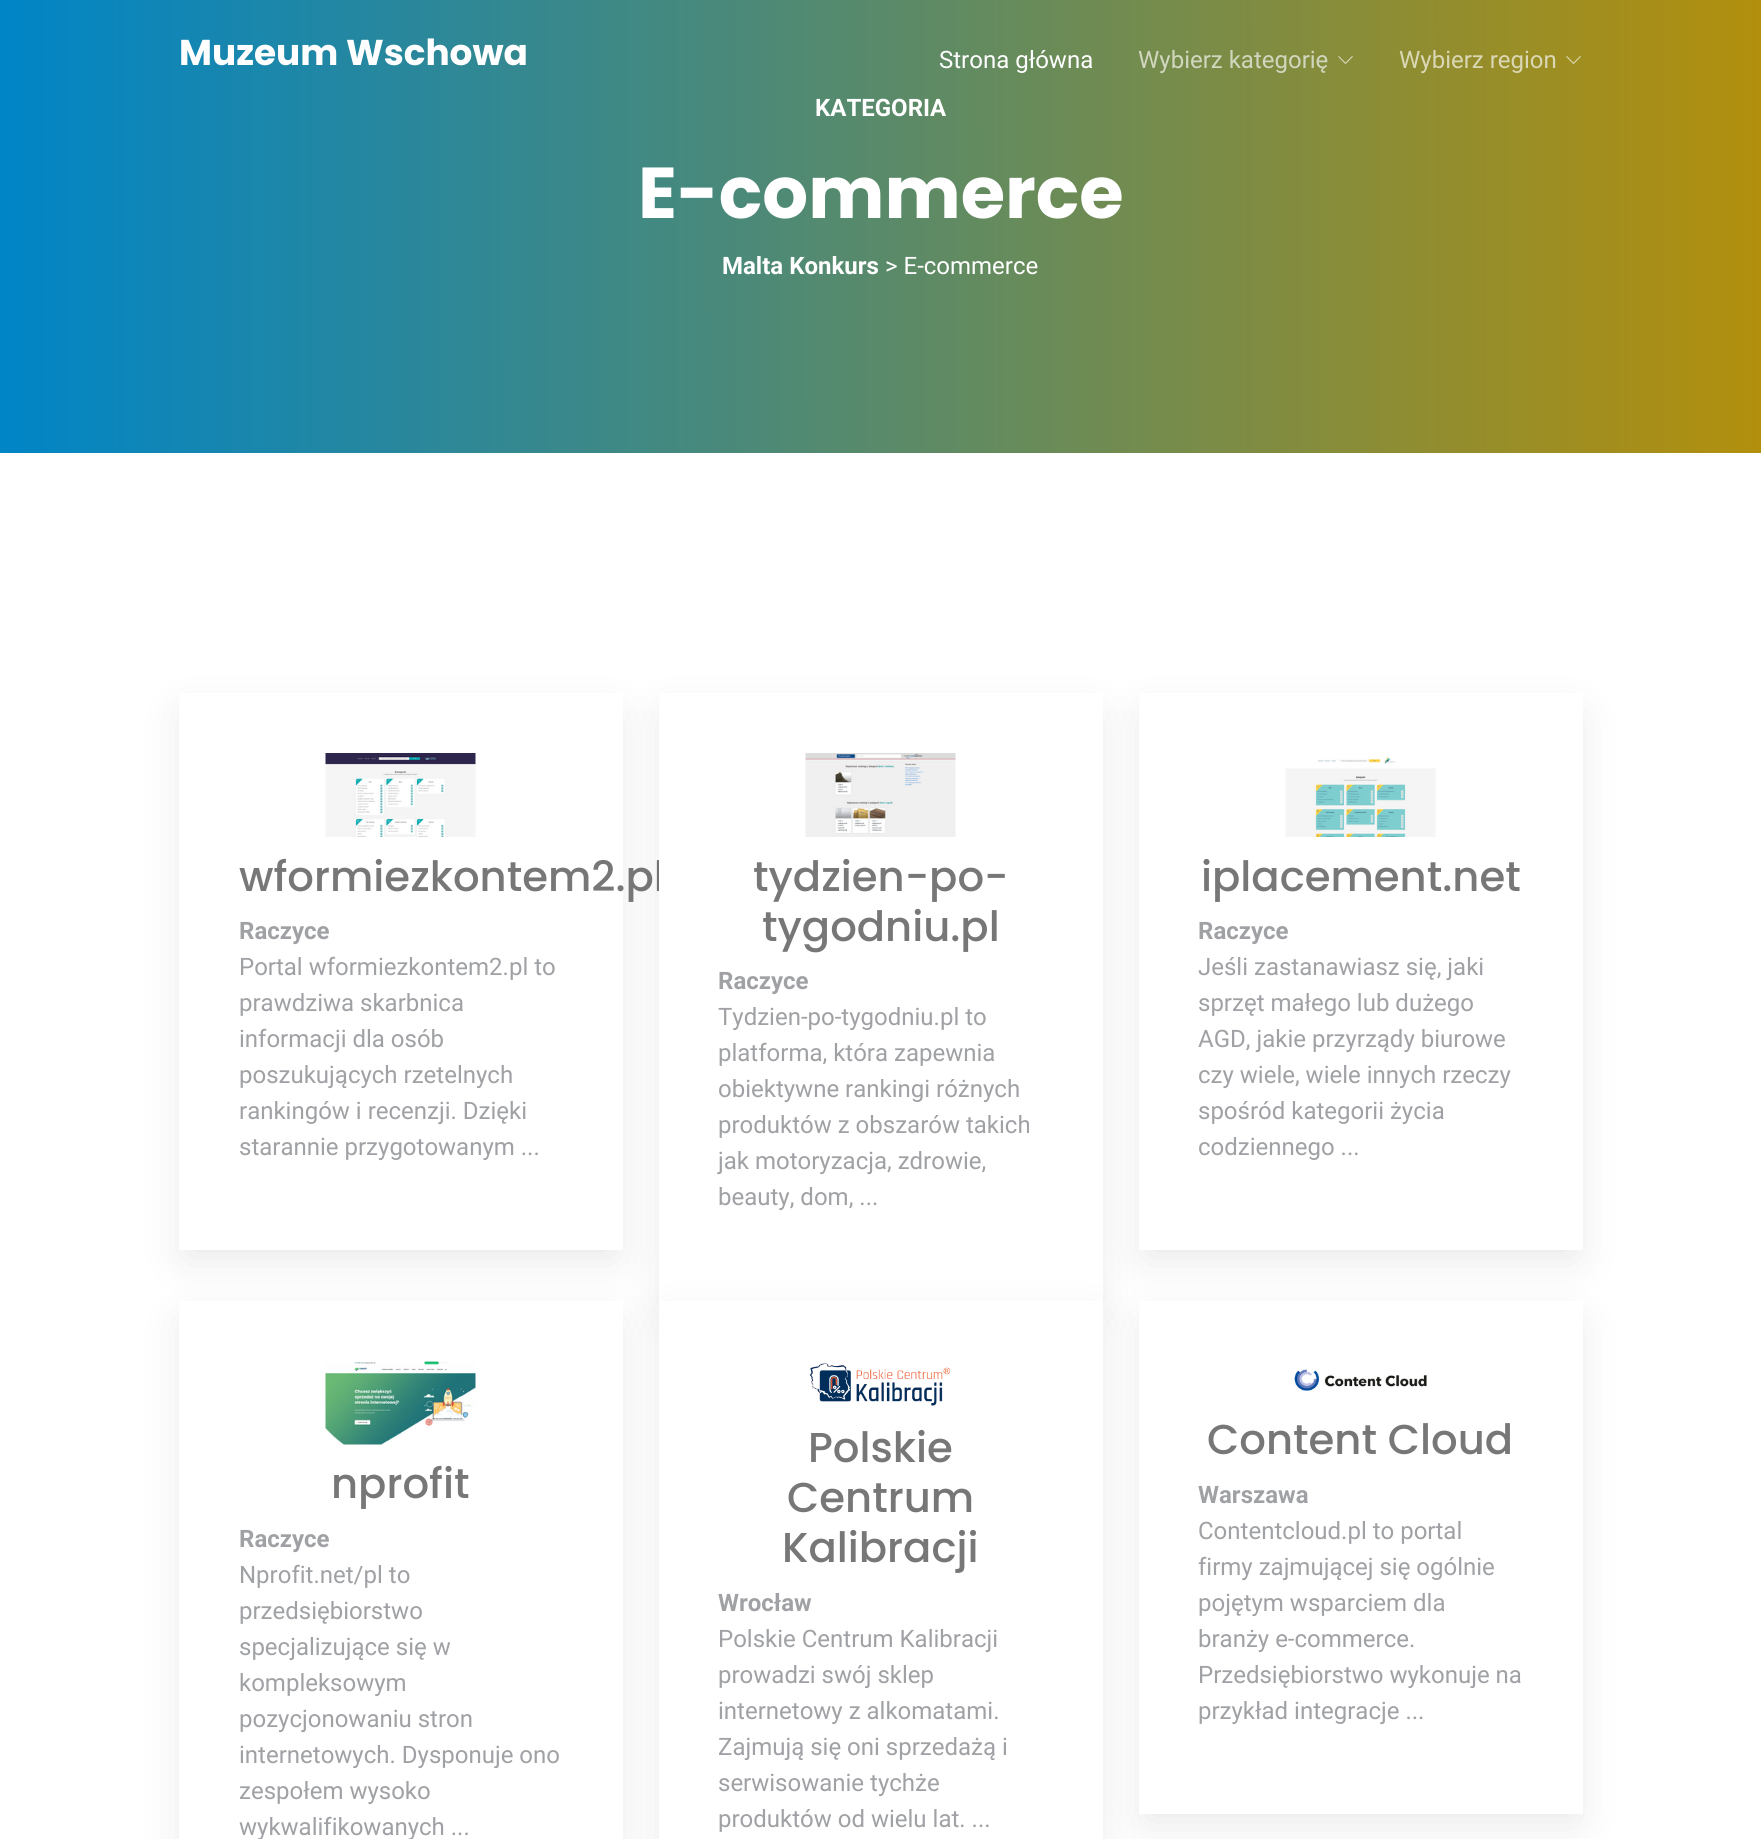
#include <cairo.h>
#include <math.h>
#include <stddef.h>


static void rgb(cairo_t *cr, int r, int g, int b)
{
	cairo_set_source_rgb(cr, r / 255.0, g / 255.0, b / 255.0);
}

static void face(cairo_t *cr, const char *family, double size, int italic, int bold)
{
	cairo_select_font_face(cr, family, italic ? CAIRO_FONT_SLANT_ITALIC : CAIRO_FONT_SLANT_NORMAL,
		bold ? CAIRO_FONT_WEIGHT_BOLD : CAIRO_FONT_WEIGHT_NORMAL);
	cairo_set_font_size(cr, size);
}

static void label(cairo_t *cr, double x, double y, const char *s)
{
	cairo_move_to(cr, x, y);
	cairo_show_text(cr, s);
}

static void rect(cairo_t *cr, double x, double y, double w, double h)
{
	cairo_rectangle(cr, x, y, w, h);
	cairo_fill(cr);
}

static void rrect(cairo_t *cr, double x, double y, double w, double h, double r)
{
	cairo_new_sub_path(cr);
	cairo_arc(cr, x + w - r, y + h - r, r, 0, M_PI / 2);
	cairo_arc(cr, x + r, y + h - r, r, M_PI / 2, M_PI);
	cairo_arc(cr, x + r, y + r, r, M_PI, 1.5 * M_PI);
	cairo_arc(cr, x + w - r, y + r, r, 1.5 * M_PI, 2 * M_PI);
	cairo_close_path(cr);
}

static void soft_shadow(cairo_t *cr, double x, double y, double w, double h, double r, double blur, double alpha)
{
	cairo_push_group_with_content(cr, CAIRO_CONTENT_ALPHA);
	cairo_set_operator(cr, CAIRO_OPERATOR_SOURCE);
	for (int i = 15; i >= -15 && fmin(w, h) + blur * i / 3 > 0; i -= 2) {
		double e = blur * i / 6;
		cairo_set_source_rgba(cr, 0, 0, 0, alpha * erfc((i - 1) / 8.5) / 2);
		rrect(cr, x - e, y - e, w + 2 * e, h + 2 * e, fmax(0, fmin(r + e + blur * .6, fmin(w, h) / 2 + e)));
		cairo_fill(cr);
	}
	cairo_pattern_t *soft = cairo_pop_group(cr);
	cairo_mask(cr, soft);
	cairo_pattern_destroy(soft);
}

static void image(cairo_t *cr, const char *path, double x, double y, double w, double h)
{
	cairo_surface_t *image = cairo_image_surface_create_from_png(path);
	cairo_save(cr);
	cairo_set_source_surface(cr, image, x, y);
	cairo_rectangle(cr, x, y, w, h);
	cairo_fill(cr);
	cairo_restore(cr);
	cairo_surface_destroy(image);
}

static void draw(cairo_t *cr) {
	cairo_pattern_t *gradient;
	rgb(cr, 255, 255, 255);
	cairo_paint(cr);
	gradient = cairo_pattern_create_linear(0, 188, 1761, 187);
	cairo_pattern_add_color_stop_rgba(gradient, 0, 0, 0.522, 0.78, 1);
	cairo_pattern_add_color_stop_rgba(gradient, 1, 0.698, 0.561, 0.051, 1);
	cairo_set_source(cr, gradient);
	cairo_pattern_destroy(gradient);
	rect(cr, 0, 0, 1761, 453);
	face(cr, "Poppins", 35.9, 0, 1);
	rgb(cr, 255, 255, 255);
	label(cr, 179, 65, "Muzeum Wschowa");
	face(cr, "Roboto", 24, 0, 0);
	label(cr, 939, 68, "Strona główna");
	rgb(cr, 209, 215, 190);
	label(cr, 1138, 68, "Wybierz kategorię");
	image(cr, "image0.png", 1338, 56, 15, 8);
	rgb(cr, 218, 215, 181);
	label(cr, 1399, 68, "Wybierz region");
	image(cr, "image1.png", 1566, 56, 15, 8);
	face(cr, "Roboto", 24, 0, 1);
	rgb(cr, 255, 255, 255);
	label(cr, 815, 116, "KATEGORIA");
	face(cr, "Poppins", 72, 0, 1);
	label(cr, 638, 218, "E-commerce");
	face(cr, "Roboto", 24, 0, 1);
	label(cr, 722, 274, "Malta Konkurs");
	face(cr, "Roboto", 24, 0, 0);
	label(cr, 885, 274, "> E-commerce");
	rgb(cr, 0, 0, 0);
	soft_shadow(cr, 186, 716, 429, 541, 0, 22.5, 0.1);
	rgb(cr, 255, 255, 255);
	rect(cr, 179, 693, 444, 557);
	image(cr, "image2.png", 325, 753, 151, 84);
	face(cr, "Poppins Medium", 41.75, 0, 0);
	rgb(cr, 119, 119, 119);
	label(cr, 239, 891, "wformiezkontem2.pl");
	face(cr, "Roboto", 24, 0, 1);
	rgb(cr, 159, 161, 164);
	label(cr, 239, 939, "Raczyce");
	face(cr, "Roboto", 24, 0, 0);
	label(cr, 239, 975, "Portal wformiezkontem2.pl to");
	label(cr, 239, 1011, "prawdziwa skarbnica");
	label(cr, 239, 1047, "informacji dla osób");
	label(cr, 239, 1083, "poszukujących rzetelnych");
	label(cr, 239, 1119, "rankingów i recenzji. Dzięki");
	label(cr, 239, 1155, "starannie przygotowanym ...");
	rgb(cr, 0, 0, 0);
	soft_shadow(cr, 666, 716, 429, 592, 0, 22.5, 0.1);
	rgb(cr, 255, 255, 255);
	rect(cr, 659, 693, 444, 608);
	image(cr, "image3.png", 805, 753, 151, 84);
	face(cr, "Poppins Medium", 41.75, 0, 0);
	rgb(cr, 119, 119, 119);
	label(cr, 753, 891, "tydzien-po-");
	label(cr, 762, 941, "tygodniu.pl");
	face(cr, "Roboto", 24, 0, 1);
	rgb(cr, 159, 161, 164);
	label(cr, 718, 989, "Raczyce");
	face(cr, "Roboto", 24, 0, 0);
	label(cr, 718, 1025, "Tydzien-po-tygodniu.pl to");
	label(cr, 718, 1061, "platforma, która zapewnia");
	label(cr, 718, 1097, "obiektywne rankingi różnych");
	label(cr, 718, 1133, "produktów z obszarów takich");
	label(cr, 718, 1169, "jak motoryzacja, zdrowie,");
	label(cr, 718, 1205, "beauty, dom, ...");
	rgb(cr, 0, 0, 0);
	soft_shadow(cr, 1146, 716, 429, 541, 0, 22.5, 0.1);
	rgb(cr, 255, 255, 255);
	rect(cr, 1139, 693, 444, 557);
	image(cr, "image4.png", 1285, 757, 151, 80);
	face(cr, "Poppins Medium", 41.75, 0, 0);
	rgb(cr, 119, 119, 119);
	label(cr, 1201, 891, "iplacement.net");
	face(cr, "Roboto", 24, 0, 1);
	rgb(cr, 159, 161, 164);
	label(cr, 1198, 939, "Raczyce");
	face(cr, "Roboto", 24, 0, 0);
	label(cr, 1198, 975, "Jeśli zastanawiasz się, jaki");
	label(cr, 1198, 1011, "sprzęt małego lub dużego");
	label(cr, 1198, 1047, "AGD, jakie przyrządy biurowe");
	label(cr, 1198, 1083, "czy wiele, wiele innych rzeczy");
	label(cr, 1198, 1119, "spośród kategorii życia");
	label(cr, 1198, 1155, "codziennego ...");
	rgb(cr, 0, 0, 0);
	soft_shadow(cr, 186, 1323, 429, 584, 0, 22.5, 0.1);
	rgb(cr, 255, 255, 255);
	rect(cr, 179, 1301, 444, 538);
	image(cr, "image5.png", 325, 1361, 151, 84);
	face(cr, "Poppins Medium", 41.75, 0, 0);
	rgb(cr, 119, 119, 119);
	label(cr, 331, 1498, "nprofit");
	face(cr, "Roboto", 24, 0, 1);
	rgb(cr, 159, 161, 164);
	label(cr, 239, 1547, "Raczyce");
	face(cr, "Roboto", 24, 0, 0);
	label(cr, 239, 1583, "Nprofit.net/pl to");
	label(cr, 239, 1619, "przedsiębiorstwo");
	label(cr, 239, 1655, "specjalizujące się w");
	label(cr, 239, 1691, "kompleksowym");
	label(cr, 239, 1727, "pozycjonowaniu stron");
	label(cr, 239, 1763, "internetowych. Dysponuje ono");
	label(cr, 239, 1799, "zespołem wysoko");
	label(cr, 239, 1835, "wykwalifikowanych ...");
	rgb(cr, 0, 0, 0);
	soft_shadow(cr, 666, 1323, 429, 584, 0, 22.5, 0.1);
	rgb(cr, 255, 255, 255);
	rect(cr, 659, 1301, 444, 538);
	image(cr, "image6.png", 809, 1363, 141, 43);
	face(cr, "Poppins Medium", 41.75, 0, 0);
	rgb(cr, 119, 119, 119);
	label(cr, 808, 1462, "Polskie");
	label(cr, 787, 1512, "Centrum");
	label(cr, 782, 1562, "Kalibracji");
	face(cr, "Roboto", 24, 0, 1);
	rgb(cr, 159, 161, 164);
	label(cr, 718, 1611, "Wrocław");
	face(cr, "Roboto", 24, 0, 0);
	label(cr, 718, 1647, "Polskie Centrum Kalibracji");
	label(cr, 718, 1683, "prowadzi swój sklep");
	label(cr, 718, 1719, "internetowy z alkomatami.");
	label(cr, 718, 1755, "Zajmują się oni sprzedażą i");
	label(cr, 718, 1791, "serwisowanie tychże");
	label(cr, 718, 1827, "produktów od wielu lat. ...");
	rgb(cr, 0, 0, 0);
	soft_shadow(cr, 1146, 1323, 429, 498, 0, 22.5, 0.1);
	rgb(cr, 255, 255, 255);
	rect(cr, 1139, 1301, 444, 513);
	image(cr, "image7.png", 1294, 1369, 133, 22);
	face(cr, "Poppins Medium", 41.75, 0, 0);
	rgb(cr, 119, 119, 119);
	label(cr, 1207, 1454, "Content Cloud");
	face(cr, "Roboto", 24, 0, 1);
	rgb(cr, 159, 161, 164);
	label(cr, 1198, 1503, "Warszawa");
	face(cr, "Roboto", 24, 0, 0);
	label(cr, 1198, 1539, "Contentcloud.pl to portal");
	label(cr, 1198, 1575, "firmy zajmującej się ogólnie");
	label(cr, 1198, 1611, "pojętym wsparciem dla");
	label(cr, 1198, 1647, "branży e-commerce.");
	label(cr, 1198, 1683, "Przedsiębiorstwo wykonuje na");
	label(cr, 1198, 1719, "przykład integracje ...");
}

int main(void) {
	cairo_surface_t *surface = cairo_image_surface_create(CAIRO_FORMAT_RGB24, 1761, 1839);
	cairo_t *cr = cairo_create(surface);
	cairo_font_options_t *options = cairo_font_options_create();
	cairo_font_options_set_hint_metrics(options, CAIRO_HINT_METRICS_OFF);
	cairo_font_options_set_hint_style(options, CAIRO_HINT_STYLE_NONE);
	cairo_set_font_options(cr, options);
	cairo_set_miter_limit(cr, 4);
	draw(cr);
	cairo_surface_write_to_png(surface, "render.png");
	cairo_font_options_destroy(options);
	cairo_destroy(cr);
	cairo_surface_destroy(surface);
	return 0;
}
